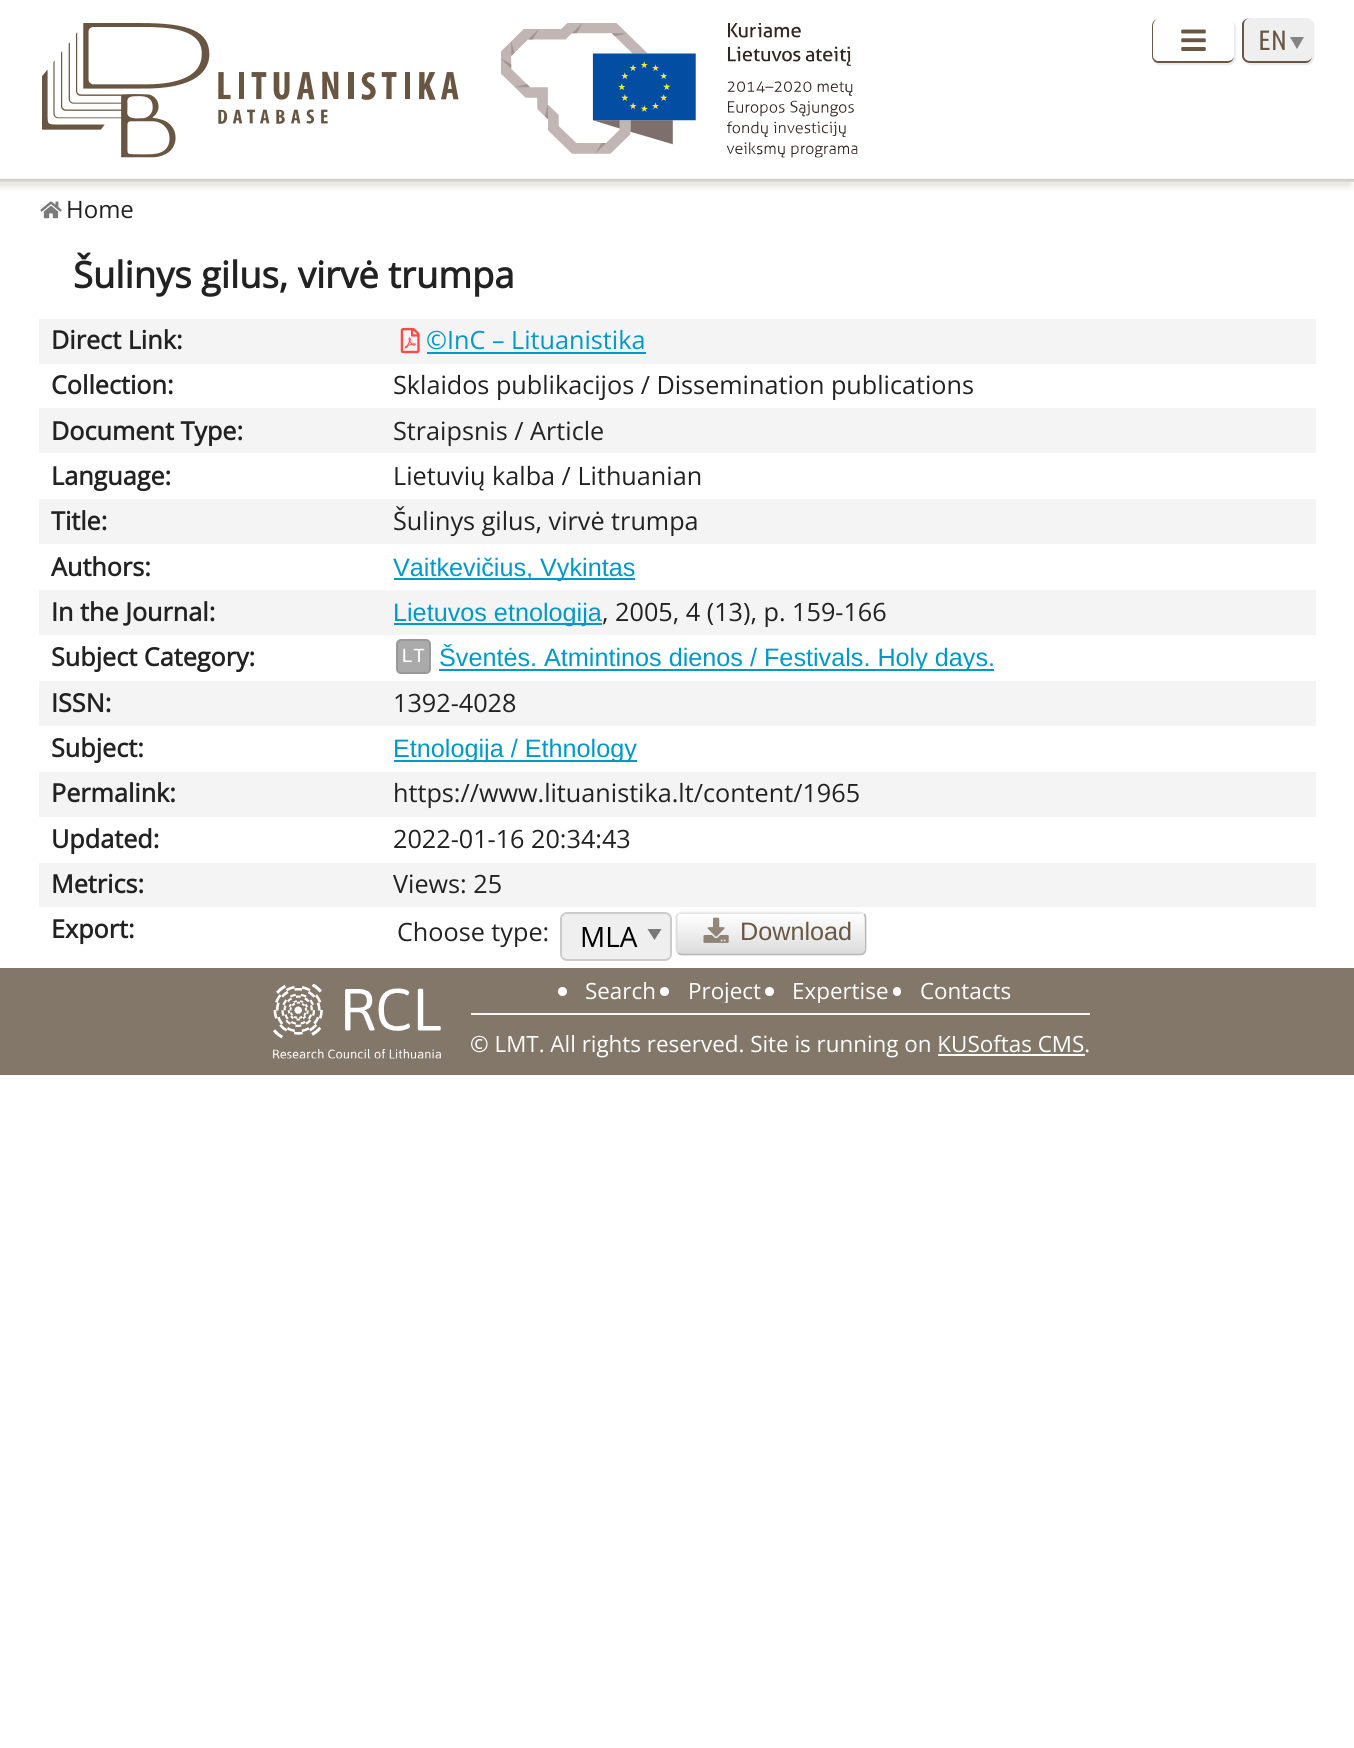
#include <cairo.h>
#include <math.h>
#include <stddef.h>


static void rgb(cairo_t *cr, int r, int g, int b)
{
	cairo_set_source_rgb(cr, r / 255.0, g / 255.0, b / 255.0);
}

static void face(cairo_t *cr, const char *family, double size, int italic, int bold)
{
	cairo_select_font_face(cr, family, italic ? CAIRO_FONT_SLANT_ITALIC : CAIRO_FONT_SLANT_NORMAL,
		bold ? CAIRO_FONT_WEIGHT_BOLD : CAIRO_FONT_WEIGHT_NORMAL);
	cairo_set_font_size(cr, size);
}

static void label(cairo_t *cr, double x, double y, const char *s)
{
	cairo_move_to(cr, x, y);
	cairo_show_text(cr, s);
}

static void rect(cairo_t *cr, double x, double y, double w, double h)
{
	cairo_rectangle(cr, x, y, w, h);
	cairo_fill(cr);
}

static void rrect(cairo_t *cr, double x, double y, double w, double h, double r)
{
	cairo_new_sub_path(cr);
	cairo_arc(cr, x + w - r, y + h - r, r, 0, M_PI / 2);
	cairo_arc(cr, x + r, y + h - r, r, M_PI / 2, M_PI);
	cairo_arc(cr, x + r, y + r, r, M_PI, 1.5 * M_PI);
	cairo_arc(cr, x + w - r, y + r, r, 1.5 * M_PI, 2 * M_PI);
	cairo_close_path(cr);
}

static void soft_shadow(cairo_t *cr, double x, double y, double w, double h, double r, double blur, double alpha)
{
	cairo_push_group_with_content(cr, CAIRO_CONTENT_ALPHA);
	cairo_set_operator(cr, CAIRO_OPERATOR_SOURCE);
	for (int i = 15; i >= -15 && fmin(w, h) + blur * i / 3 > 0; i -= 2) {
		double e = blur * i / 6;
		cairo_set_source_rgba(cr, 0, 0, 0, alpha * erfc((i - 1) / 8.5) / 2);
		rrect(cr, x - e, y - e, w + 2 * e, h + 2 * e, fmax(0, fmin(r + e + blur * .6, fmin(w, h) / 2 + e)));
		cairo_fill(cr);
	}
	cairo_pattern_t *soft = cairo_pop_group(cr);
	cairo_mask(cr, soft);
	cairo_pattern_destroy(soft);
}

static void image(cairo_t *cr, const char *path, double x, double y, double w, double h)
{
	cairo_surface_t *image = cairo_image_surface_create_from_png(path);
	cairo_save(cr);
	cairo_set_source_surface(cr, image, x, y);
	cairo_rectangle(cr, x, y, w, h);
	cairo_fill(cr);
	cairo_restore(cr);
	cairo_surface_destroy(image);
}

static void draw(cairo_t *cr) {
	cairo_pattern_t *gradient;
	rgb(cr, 255, 255, 255);
	cairo_paint(cr);
	image(cr, "image0.png", 42, 23, 417, 135);
	image(cr, "image1.png", 501, 23, 357, 135);
	cairo_save(cr);
	cairo_set_fill_rule(cr, CAIRO_FILL_RULE_EVEN_ODD);
	cairo_new_path(cr);
	cairo_move_to(cr, 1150, 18);
	cairo_line_to(cr, 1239, 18);
	cairo_line_to(cr, 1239, 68);
	cairo_line_to(cr, 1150, 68);
	cairo_close_path(cr);
	cairo_move_to(cr, 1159, 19);
	cairo_line_to(cr, 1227, 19);
	cairo_curve_to(cr, 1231, 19, 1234, 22, 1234, 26);
	cairo_line_to(cr, 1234, 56);
	cairo_curve_to(cr, 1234, 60, 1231, 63, 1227, 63);
	cairo_line_to(cr, 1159, 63);
	cairo_curve_to(cr, 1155, 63, 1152, 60, 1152, 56);
	cairo_line_to(cr, 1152, 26);
	cairo_curve_to(cr, 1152, 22, 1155, 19, 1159, 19);
	cairo_close_path(cr);
	cairo_clip(cr);
	rgb(cr, 50, 50, 50);
	soft_shadow(cr, 1153, 21, 83, 44, 7, 0.5, 0.1);
	cairo_restore(cr);
	rgb(cr, 104, 87, 68);
	cairo_set_fill_rule(cr, CAIRO_FILL_RULE_EVEN_ODD);
	cairo_new_path(cr);
	cairo_move_to(cr, 1158, 19);
	cairo_line_to(cr, 1227, 19);
	cairo_curve_to(cr, 1231, 19, 1234, 22, 1234, 26);
	cairo_line_to(cr, 1234, 56);
	cairo_curve_to(cr, 1234, 60, 1231, 63, 1227, 63);
	cairo_line_to(cr, 1158, 63);
	cairo_curve_to(cr, 1155, 63, 1152, 60, 1152, 56);
	cairo_line_to(cr, 1152, 26);
	cairo_curve_to(cr, 1152, 22, 1155, 19, 1158, 19);
	cairo_close_path(cr);
	cairo_move_to(cr, 1158, 19);
	cairo_line_to(cr, 1227, 19);
	cairo_curve_to(cr, 1231, 19, 1234, 22, 1234, 26);
	cairo_line_to(cr, 1234, 56);
	cairo_curve_to(cr, 1234, 59, 1231, 61, 1227, 61);
	cairo_line_to(cr, 1158, 61);
	cairo_curve_to(cr, 1156, 61, 1153, 59, 1153, 56);
	cairo_line_to(cr, 1153, 26);
	cairo_curve_to(cr, 1153, 22, 1156, 19, 1158, 19);
	cairo_close_path(cr);
	cairo_fill(cr);
	image(cr, "image2.png", 1181, 29, 25, 22);
	rgb(cr, 50, 50, 50);
	soft_shadow(cr, 1244, 19, 70, 46, 7, 0.5, 0.1);
	rgb(cr, 239, 239, 239);
	rrect(cr, 1243, 18, 70, 45, 7);
	cairo_fill(cr);
	rgb(cr, 104, 87, 68);
	cairo_new_path(cr);
	cairo_move_to(cr, 1250, 18);
	cairo_line_to(cr, 1306, 18);
	cairo_curve_to(cr, 1309, 18, 1312, 21, 1312, 24);
	cairo_line_to(cr, 1312, 56);
	cairo_curve_to(cr, 1312, 60, 1309, 63, 1306, 63);
	cairo_line_to(cr, 1250, 63);
	cairo_curve_to(cr, 1246, 63, 1242, 60, 1242, 56);
	cairo_line_to(cr, 1242, 24);
	cairo_curve_to(cr, 1242, 21, 1246, 18, 1250, 18);
	cairo_close_path(cr);
	cairo_move_to(cr, 1250, 18);
	cairo_line_to(cr, 1306, 18);
	cairo_curve_to(cr, 1309, 18, 1312, 21, 1312, 24);
	cairo_line_to(cr, 1312, 56);
	cairo_curve_to(cr, 1312, 59, 1309, 61, 1306, 61);
	cairo_line_to(cr, 1250, 61);
	cairo_curve_to(cr, 1247, 61, 1244, 59, 1244, 56);
	cairo_line_to(cr, 1244, 24);
	cairo_curve_to(cr, 1244, 21, 1247, 18, 1250, 18);
	cairo_close_path(cr);
	cairo_fill(cr);
	face(cr, "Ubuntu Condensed", 28, 0, 0);
	label(cr, 1258, 50, "EN");
	rgb(cr, 131, 131, 131);
	cairo_set_fill_rule(cr, CAIRO_FILL_RULE_WINDING);
	cairo_new_path(cr);
	cairo_move_to(cr, 1290, 37);
	cairo_line_to(cr, 1304, 37);
	cairo_line_to(cr, 1297, 49);
	cairo_close_path(cr);
	cairo_fill(cr);
	rgb(cr, 217, 213, 208);
	soft_shadow(cr, -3, 182, 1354, 4, 0, 3.5, 0.8);
	rgb(cr, 200, 200, 200);
	rect(cr, 0, 179, 1354, 1);
	rgb(cr, 217, 213, 208);
	rect(cr, 0, 180, 1354, 2);
	image(cr, "image3.png", 40, 201, 22, 18);
	face(cr, "Open Sans", 24, 0, 0);
	rgb(cr, 34, 34, 34);
	label(cr, 66, 218, "Home");
	face(cr, "Open Sans", 36.4, 0, 1);
	label(cr, 73, 288, "Šulinys gilus, virvė trumpa");
	rgb(cr, 244, 244, 244);
	rect(cr, 39, 319, 1277, 45);
	face(cr, "Open Sans", 25.2, 0, 1);
	rgb(cr, 34, 34, 34);
	label(cr, 51, 349, "Direct Link:");
	image(cr, "image4.png", 400, 327, 20, 27);
	face(cr, "Open Sans", 25.2, 0, 0);
	rgb(cr, 0, 153, 204);
	label(cr, 426, 349, "©InC – Lituanistika");
	rect(cr, 427, 352, 219, 2);
	face(cr, "Open Sans", 25.2, 0, 1);
	rgb(cr, 34, 34, 34);
	label(cr, 51, 394, "Collection:");
	face(cr, "Open Sans", 25.2, 0, 0);
	label(cr, 393, 394, "Sklaidos publikacijos / Dissemination publications");
	rgb(cr, 244, 244, 244);
	rect(cr, 39, 408, 1277, 45);
	face(cr, "Open Sans", 25.2, 0, 1);
	rgb(cr, 34, 34, 34);
	label(cr, 51, 440, "Document Type:");
	face(cr, "Open Sans", 25.2, 0, 0);
	label(cr, 393, 440, "Straipsnis / Article");
	face(cr, "Open Sans", 25.2, 0, 1);
	label(cr, 51, 485, "Language:");
	face(cr, "Open Sans", 25.2, 0, 0);
	label(cr, 393, 485, "Lietuvių kalba / Lithuanian");
	rgb(cr, 244, 244, 244);
	rect(cr, 39, 499, 1277, 45);
	face(cr, "Open Sans", 25.2, 0, 1);
	rgb(cr, 34, 34, 34);
	label(cr, 51, 530, "Title:");
	face(cr, "Open Sans", 25.2, 0, 0);
	label(cr, 393, 530, "Šulinys gilus, virvė trumpa");
	face(cr, "Open Sans", 25.2, 0, 1);
	label(cr, 51, 576, "Authors:");
	rgb(cr, 0, 153, 204);
	rect(cr, 394, 578, 241, 2);
	face(cr, "Liberation Sans", 25.2, 0, 0);
	label(cr, 393, 576, "Vaitkevičius, Vykintas");
	rgb(cr, 244, 244, 244);
	rect(cr, 39, 590, 1277, 45);
	face(cr, "Open Sans", 25.2, 0, 1);
	rgb(cr, 34, 34, 34);
	label(cr, 51, 621, "In the Journal:");
	rgb(cr, 0, 153, 204);
	rect(cr, 394, 623, 208, 2);
	face(cr, "Liberation Sans", 25.2, 0, 0);
	label(cr, 393, 621, "Lietuvos etnologija");
	face(cr, "Open Sans", 25.2, 0, 0);
	rgb(cr, 34, 34, 34);
	label(cr, 602, 621, ", 2005, 4 (13), p. 159-166");
	face(cr, "Open Sans", 25.2, 0, 1);
	label(cr, 51, 666, "Subject Category:");
	rgb(cr, 170, 170, 170);
	rrect(cr, 397, 640, 33, 33, 4);
	cairo_fill_preserve(cr);
	rgb(cr, 153, 153, 153);
	cairo_stroke(cr);
	face(cr, "Liberation Mono", 20, 0, 0);
	rgb(cr, 255, 255, 255);
	label(cr, 401, 662, "LT");
	rgb(cr, 0, 153, 204);
	rect(cr, 439, 669, 555, 2);
	face(cr, "Liberation Sans", 25.2, 0, 0);
	label(cr, 439, 666, "Šventės. Atmintinos dienos / Festivals. Holy days.");
	rgb(cr, 244, 244, 244);
	rect(cr, 39, 681, 1277, 45);
	face(cr, "Open Sans", 25.2, 0, 1);
	rgb(cr, 34, 34, 34);
	label(cr, 51, 712, "ISSN:");
	face(cr, "Open Sans", 25.2, 0, 0);
	label(cr, 393, 712, "1392-4028");
	face(cr, "Open Sans", 25.2, 0, 1);
	label(cr, 51, 757, "Subject:");
	rgb(cr, 0, 153, 204);
	rect(cr, 394, 760, 243, 2);
	face(cr, "Liberation Sans", 25.2, 0, 0);
	label(cr, 393, 757, "Etnologija / Ethnology");
	rgb(cr, 244, 244, 244);
	rect(cr, 39, 772, 1277, 45);
	face(cr, "Open Sans", 25.2, 0, 1);
	rgb(cr, 34, 34, 34);
	label(cr, 51, 802, "Permalink:");
	face(cr, "Open Sans", 25.2, 0, 0);
	label(cr, 393, 802, "https://www.lituanistika.lt/content/1965");
	face(cr, "Open Sans", 25.2, 0, 1);
	label(cr, 51, 848, "Updated:");
	face(cr, "Open Sans", 25.2, 0, 0);
	label(cr, 393, 848, "2022-01-16 20:34:43");
	rgb(cr, 244, 244, 244);
	rect(cr, 39, 863, 1277, 44);
	face(cr, "Open Sans", 25.2, 0, 1);
	rgb(cr, 34, 34, 34);
	label(cr, 51, 893, "Metrics:");
	face(cr, "Open Sans", 25.2, 0, 0);
	label(cr, 393, 893, "Views: 25");
	face(cr, "Open Sans", 25.2, 0, 1);
	label(cr, 51, 938, "Export:");
	face(cr, "Open Sans", 25.2, 0, 0);
	label(cr, 397, 941, "Choose type:");
	rgb(cr, 239, 239, 239);
	rrect(cr, 561, 913, 110, 47, 6);
	cairo_fill_preserve(cr);
	rgb(cr, 204, 204, 204);
	cairo_stroke(cr);
	face(cr, "Open Sans", 28, 0, 0);
	rgb(cr, 0, 0, 0);
	label(cr, 580, 947, "MLA");
	rgb(cr, 120, 120, 120);
	cairo_new_path(cr);
	cairo_move_to(cr, 647.5, 929);
	cairo_line_to(cr, 661.5, 929);
	cairo_line_to(cr, 654.5, 940);
	cairo_close_path(cr);
	cairo_fill(cr);
	cairo_save(cr);
	rrect(cr, 676, 912, 190, 44, 7);
	cairo_clip(cr);
	gradient = cairo_pattern_create_linear(771, 873, 771, 914);
	cairo_pattern_add_color_stop_rgba(gradient, 0, 1, 1, 1, 1);
	cairo_pattern_add_color_stop_rgba(gradient, 1, 0.863, 0.863, 0.863, 1);
	cairo_set_source(cr, gradient);
	cairo_pattern_destroy(gradient);
	rect(cr, 676, 912, 190, 2);
	gradient = cairo_pattern_create_linear(771, 914, 771, 954);
	cairo_pattern_add_color_stop_rgba(gradient, 0, 1, 1, 1, 1);
	cairo_pattern_add_color_stop_rgba(gradient, 1, 0.863, 0.863, 0.863, 1);
	cairo_set_source(cr, gradient);
	cairo_pattern_destroy(gradient);
	rect(cr, 676, 914, 190, 40);
	cairo_restore(cr);
	rgb(cr, 255, 255, 255);
	cairo_new_path(cr);
	cairo_move_to(cr, 682, 915);
	cairo_line_to(cr, 860, 915);
	cairo_curve_to(cr, 862, 915, 864, 917, 864, 920);
	cairo_line_to(cr, 864, 951);
	cairo_line_to(cr, 863, 953);
	cairo_curve_to(cr, 864, 952, 865, 951, 865, 950);
	cairo_line_to(cr, 865, 918);
	cairo_curve_to(cr, 865, 916, 863, 914, 861, 914);
	cairo_line_to(cr, 681, 914);
	cairo_curve_to(cr, 679, 914, 677, 916, 677, 918);
	cairo_line_to(cr, 677, 920);
	cairo_curve_to(cr, 677, 917, 679, 915, 682, 915);
	cairo_close_path(cr);
	cairo_fill(cr);
	cairo_new_path(cr);
	cairo_move_to(cr, 678, 914);
	cairo_curve_to(cr, 679, 913, 680.5, 912.5, 682, 912.5);
	cairo_line_to(cr, 860, 912.5);
	cairo_curve_to(cr, 861.5, 912.5, 863, 913, 864, 914);
	rgb(cr, 238, 238, 238);
	cairo_set_line_width(cr, 1.8);
	cairo_stroke(cr);
	cairo_new_path(cr);
	cairo_move_to(cr, 864, 914);
	cairo_curve_to(cr, 865, 915, 865.5, 916.5, 865.5, 918);
	cairo_line_to(cr, 865.5, 949);
	cairo_curve_to(cr, 865.5, 950.5, 865, 952, 864, 953);
	cairo_curve_to(cr, 863, 954, 861.5, 954.5, 860, 954.5);
	cairo_line_to(cr, 682, 954.5);
	cairo_curve_to(cr, 680.5, 954.5, 679, 954, 678, 953);
	rgb(cr, 187, 187, 187);
	cairo_stroke(cr);
	cairo_new_path(cr);
	cairo_move_to(cr, 678, 953);
	cairo_curve_to(cr, 677, 952, 676.5, 950.5, 676.5, 949);
	cairo_line_to(cr, 676.5, 918);
	cairo_curve_to(cr, 676.5, 916.5, 677, 915, 678, 914);
	rgb(cr, 221, 221, 221);
	cairo_stroke(cr);
	image(cr, "image5.png", 703, 917, 26, 26);
	face(cr, "Liberation Sans", 25.2, 0, 0);
	rgb(cr, 104, 87, 68);
	label(cr, 740, 940, "Download");
	rgb(cr, 131, 119, 105);
	rect(cr, 0, 968, 1354, 107);
	image(cr, "image6.png", 273, 984, 168, 75);
	rgb(cr, 248, 248, 248);
	rect(cr, 471, 1013, 619, 2);
	rgb(cr, 255, 255, 255);
	cairo_arc(cr, 562.5, 991.5, 4.5, 0, 2 * M_PI);
	cairo_fill(cr);
	face(cr, "Open Sans", 22.4, 0, 0);
	label(cr, 585, 999, "Search");
	cairo_new_path(cr);
	cairo_arc(cr, 664.5, 991.5, 4.5, 0, 2 * M_PI);
	cairo_fill(cr);
	cairo_save(cr);
	cairo_rectangle(cr, 534, 980, 493, 23);
	cairo_clip(cr);
	label(cr, 688, 999, "Project");
	cairo_restore(cr);
	cairo_new_path(cr);
	cairo_arc(cr, 769.5, 991.5, 4.5, 0, 2 * M_PI);
	cairo_fill(cr);
	cairo_save(cr);
	cairo_rectangle(cr, 534, 980, 493, 23);
	cairo_clip(cr);
	label(cr, 792, 999, "Expertise");
	cairo_restore(cr);
	rrect(cr, 893, 987, 8, 9, 4);
	cairo_fill(cr);
	label(cr, 920, 999, "Contacts");
	label(cr, 470, 1052, "© LMT. All rights reserved. Site is running on KUSoftas CMS.");
	rect(cr, 938, 1054, 147, 2);
}

int main(void) {
	cairo_surface_t *surface = cairo_image_surface_create(CAIRO_FORMAT_RGB24, 1354, 1748);
	cairo_t *cr = cairo_create(surface);
	cairo_font_options_t *options = cairo_font_options_create();
	cairo_font_options_set_hint_metrics(options, CAIRO_HINT_METRICS_OFF);
	cairo_font_options_set_hint_style(options, CAIRO_HINT_STYLE_NONE);
	cairo_set_font_options(cr, options);
	cairo_set_miter_limit(cr, 4);
	draw(cr);
	cairo_surface_write_to_png(surface, "render.png");
	cairo_font_options_destroy(options);
	cairo_destroy(cr);
	cairo_surface_destroy(surface);
	return 0;
}
